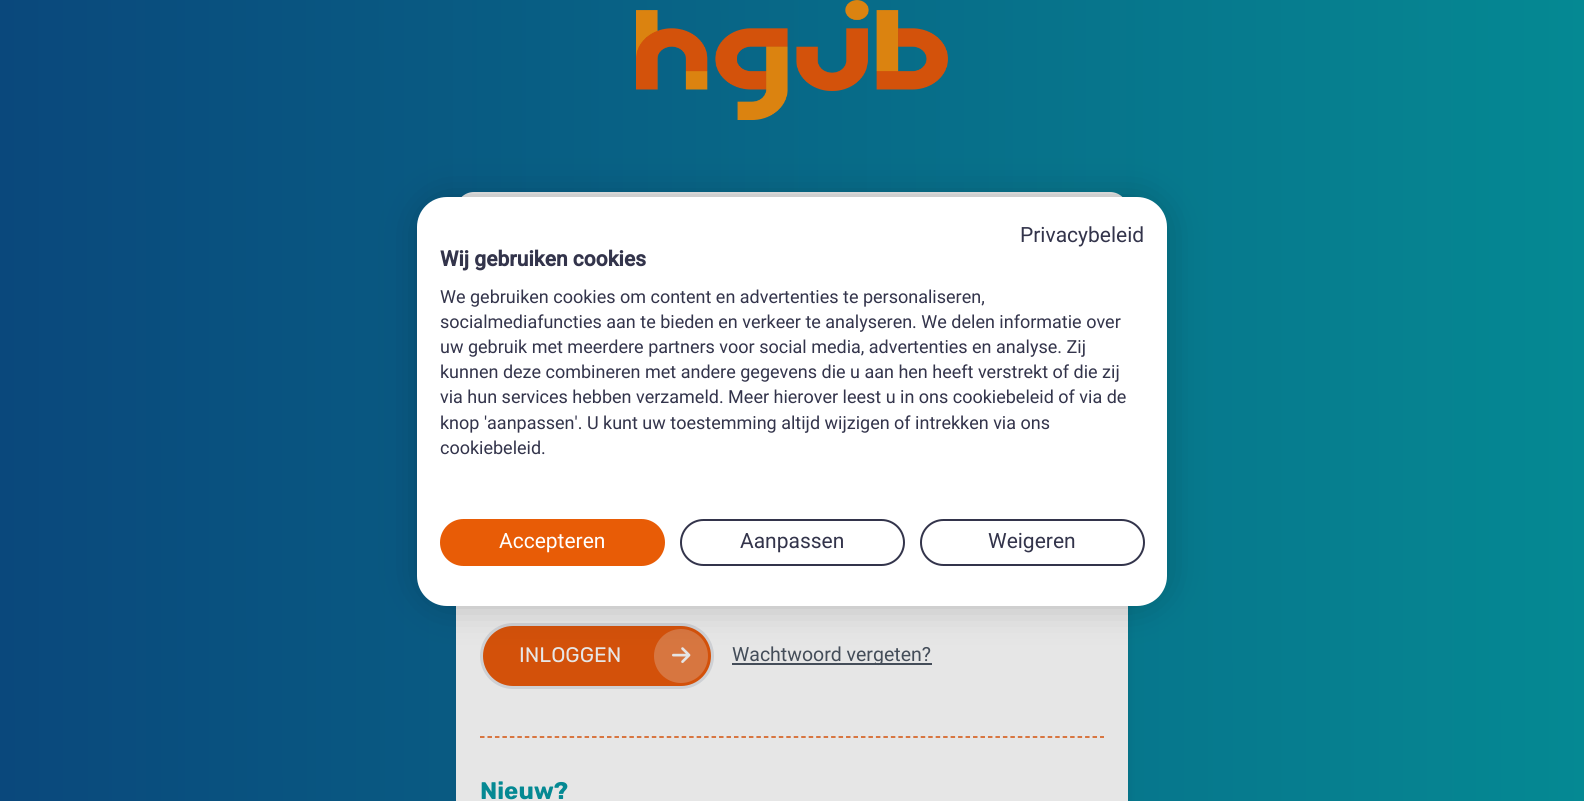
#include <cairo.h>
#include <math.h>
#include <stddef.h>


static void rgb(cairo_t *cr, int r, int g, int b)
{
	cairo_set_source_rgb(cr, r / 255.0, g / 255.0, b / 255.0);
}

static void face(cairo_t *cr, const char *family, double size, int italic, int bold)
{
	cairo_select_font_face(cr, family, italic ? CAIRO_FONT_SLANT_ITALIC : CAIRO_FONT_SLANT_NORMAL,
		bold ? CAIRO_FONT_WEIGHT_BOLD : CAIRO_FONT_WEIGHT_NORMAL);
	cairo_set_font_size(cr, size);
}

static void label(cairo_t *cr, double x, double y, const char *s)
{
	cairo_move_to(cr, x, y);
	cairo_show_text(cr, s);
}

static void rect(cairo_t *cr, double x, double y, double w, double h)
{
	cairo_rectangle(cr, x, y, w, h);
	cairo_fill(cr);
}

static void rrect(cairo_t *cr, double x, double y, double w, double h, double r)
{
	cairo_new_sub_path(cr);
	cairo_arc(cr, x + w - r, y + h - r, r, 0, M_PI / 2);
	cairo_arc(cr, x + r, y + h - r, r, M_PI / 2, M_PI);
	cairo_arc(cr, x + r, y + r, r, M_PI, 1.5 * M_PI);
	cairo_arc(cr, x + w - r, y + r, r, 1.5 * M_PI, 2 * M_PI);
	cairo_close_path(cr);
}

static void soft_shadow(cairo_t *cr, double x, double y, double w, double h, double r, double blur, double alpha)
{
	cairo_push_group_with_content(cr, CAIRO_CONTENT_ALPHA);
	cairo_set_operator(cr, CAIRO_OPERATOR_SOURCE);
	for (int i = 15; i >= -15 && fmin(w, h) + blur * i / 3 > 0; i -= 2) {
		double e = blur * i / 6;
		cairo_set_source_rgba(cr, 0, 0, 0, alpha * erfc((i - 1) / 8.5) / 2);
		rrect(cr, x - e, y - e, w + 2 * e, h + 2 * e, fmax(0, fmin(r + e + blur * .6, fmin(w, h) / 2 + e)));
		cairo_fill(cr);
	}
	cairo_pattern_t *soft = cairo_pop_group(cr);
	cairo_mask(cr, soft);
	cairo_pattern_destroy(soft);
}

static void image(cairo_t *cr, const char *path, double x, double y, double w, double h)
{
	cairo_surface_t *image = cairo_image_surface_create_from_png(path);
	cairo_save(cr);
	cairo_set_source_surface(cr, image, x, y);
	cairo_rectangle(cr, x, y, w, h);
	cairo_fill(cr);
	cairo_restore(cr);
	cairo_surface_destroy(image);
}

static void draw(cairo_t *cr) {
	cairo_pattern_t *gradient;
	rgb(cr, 255, 255, 255);
	cairo_paint(cr);
	gradient = cairo_pattern_create_linear(0, 521, 1584, 520);
	cairo_pattern_add_color_stop_rgba(gradient, 0, 0.039, 0.282, 0.486, 1);
	cairo_pattern_add_color_stop_rgba(gradient, 1, 0.02, 0.537, 0.576, 1);
	cairo_set_source(cr, gradient);
	cairo_pattern_destroy(gradient);
	rect(cr, 0, 0, 1584, 801);
	rgb(cr, 0, 0, 0);
	soft_shadow(cr, 458, 200, 669, 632, 17, 4.5, 0.1);
	rgb(cr, 230, 230, 230);
	rrect(cr, 456, 192, 672, 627, 18);
	cairo_fill(cr);
	rgb(cr, 211, 81, 10);
	rrect(cr, 481.5, 624.5, 231, 63, 31.5);
	cairo_fill_preserve(cr);
	rgb(cr, 206, 208, 212);
	cairo_set_line_width(cr, 3);
	cairo_stroke(cr);
	image(cr, "image1.png", 672, 647, 19, 16);
	cairo_set_source_rgba(cr, 0.902, 0.902, 0.902, 0.25);
	cairo_arc(cr, 681, 656, 27, 0, 2 * M_PI);
	cairo_fill(cr);
	rgb(cr, 0, 0, 0);
	soft_shadow(cr, 417, 197, 750, 409, 30, 18, 0.2);
	rgb(cr, 255, 255, 255);
	rrect(cr, 417, 197, 750, 409, 30);
	cairo_fill(cr);
	face(cr, "Roboto", 21, 0, 0);
	rgb(cr, 51, 52, 75);
	label(cr, 1020, 242, "Privacybeleid");
	face(cr, "Roboto", 21, 0, 1);
	label(cr, 440, 266, "Wij gebruiken cookies");
	face(cr, "Roboto", 18, 0, 0);
	label(cr, 440, 303, "We gebruiken cookies om content en advertenties te personaliseren,");
	label(cr, 440, 328, "socialmediafuncties aan te bieden en verkeer te analyseren. We delen informatie over");
	label(cr, 440, 353, "uw gebruik met meerdere partners voor social media, advertenties en analyse. Zij");
	label(cr, 440, 378, "kunnen deze combineren met andere gegevens die u aan hen heeft verstrekt of die zij");
	label(cr, 440, 403, "via hun services hebben verzameld. Meer hierover leest u in ons cookiebeleid of via de");
	label(cr, 440, 429, "knop 'aanpassen'. U kunt uw toestemming altijd wijzigen of intrekken via ons");
	label(cr, 440, 454, "cookiebeleid.");
	rgb(cr, 232, 92, 6);
	rrect(cr, 441, 520, 223, 45, 22.5);
	cairo_fill_preserve(cr);
	cairo_set_line_width(cr, 2);
	cairo_stroke(cr);
	face(cr, "Roboto", 21, 0, 0);
	rgb(cr, 255, 255, 255);
	label(cr, 499, 548, "Accepteren");
	rrect(cr, 681, 520, 223, 45, 22.5);
	rgb(cr, 51, 52, 75);
	cairo_stroke(cr);
	label(cr, 740, 548, "Aanpassen");
	rrect(cr, 921, 520, 223, 45, 22.5);
	cairo_stroke(cr);
	label(cr, 988, 548, "Weigeren");
	image(cr, "image0.png", 636, 0, 312, 120);
	face(cr, "Rubik", 21, 0, 0);
	rgb(cr, 230, 230, 230);
	label(cr, 519, 662, "INLOGGEN");
	rgb(cr, 68, 77, 89);
	rect(cr, 732, 663, 200, 2);
	face(cr, "Roboto", 19.5, 0, 0);
	label(cr, 732, 661, "Wachtwoord vergeten?");
	cairo_new_path(cr);
	cairo_move_to(cr, 480, 737);
	cairo_line_to(cr, 1104, 737);
	rgb(cr, 211, 81, 10);
	cairo_set_line_width(cr, 1.5);
	cairo_set_dash(cr, (double[]){4.5, 2.97}, 2, 0);
	cairo_stroke(cr);
	face(cr, "Rubik", 24, 0, 1);
	rgb(cr, 5, 137, 147);
	label(cr, 480, 799, "Nieuw?");
}

int main(void) {
	cairo_surface_t *surface = cairo_image_surface_create(CAIRO_FORMAT_RGB24, 1584, 801);
	cairo_t *cr = cairo_create(surface);
	cairo_font_options_t *options = cairo_font_options_create();
	cairo_font_options_set_hint_metrics(options, CAIRO_HINT_METRICS_OFF);
	cairo_font_options_set_hint_style(options, CAIRO_HINT_STYLE_NONE);
	cairo_set_font_options(cr, options);
	cairo_set_miter_limit(cr, 4);
	draw(cr);
	cairo_surface_write_to_png(surface, "render.png");
	cairo_font_options_destroy(options);
	cairo_destroy(cr);
	cairo_surface_destroy(surface);
	return 0;
}
